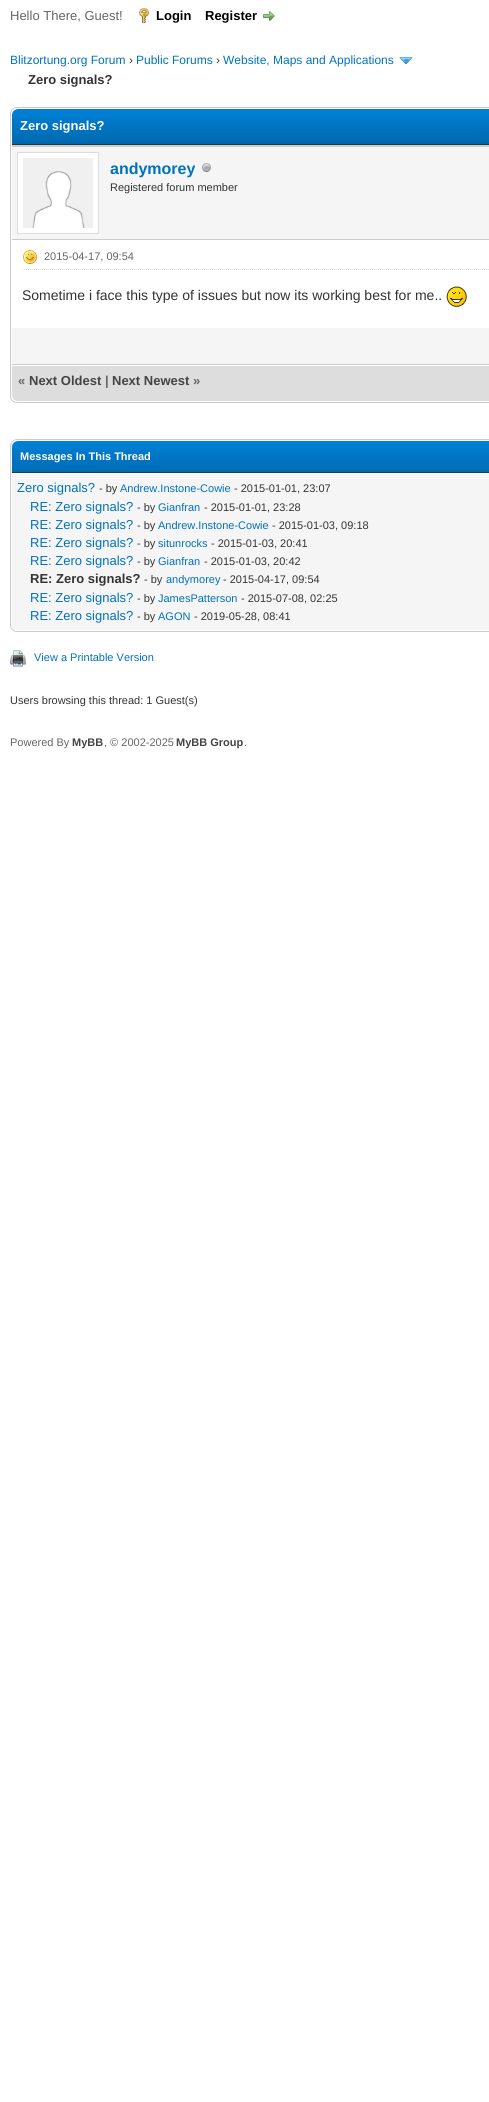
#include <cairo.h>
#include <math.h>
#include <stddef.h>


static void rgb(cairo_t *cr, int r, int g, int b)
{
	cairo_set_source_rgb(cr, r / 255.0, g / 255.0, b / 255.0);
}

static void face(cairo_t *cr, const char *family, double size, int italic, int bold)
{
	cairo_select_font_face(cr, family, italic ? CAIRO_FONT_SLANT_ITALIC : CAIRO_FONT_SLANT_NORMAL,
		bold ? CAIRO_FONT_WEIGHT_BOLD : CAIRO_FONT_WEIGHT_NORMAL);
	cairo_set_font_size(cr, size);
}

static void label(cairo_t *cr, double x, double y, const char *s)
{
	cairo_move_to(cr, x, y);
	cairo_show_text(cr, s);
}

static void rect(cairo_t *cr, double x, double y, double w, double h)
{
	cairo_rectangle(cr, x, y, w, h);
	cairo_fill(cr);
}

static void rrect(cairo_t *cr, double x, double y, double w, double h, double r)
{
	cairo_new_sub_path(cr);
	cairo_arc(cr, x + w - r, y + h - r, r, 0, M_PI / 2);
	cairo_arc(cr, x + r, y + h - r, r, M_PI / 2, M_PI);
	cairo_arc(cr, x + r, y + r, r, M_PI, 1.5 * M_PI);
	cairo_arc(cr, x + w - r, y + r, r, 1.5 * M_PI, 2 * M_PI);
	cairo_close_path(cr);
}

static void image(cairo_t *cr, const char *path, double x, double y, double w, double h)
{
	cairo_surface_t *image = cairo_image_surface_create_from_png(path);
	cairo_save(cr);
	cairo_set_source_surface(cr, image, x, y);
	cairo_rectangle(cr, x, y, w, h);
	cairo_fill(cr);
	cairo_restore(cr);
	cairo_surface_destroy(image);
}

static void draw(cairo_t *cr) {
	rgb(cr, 255, 255, 255);
	cairo_paint(cr);
	face(cr, "Liberation Sans", 13, 0, 0);
	rgb(cr, 102, 102, 102);
	label(cr, 10, 20, "Hello There, Guest!");
	image(cr, "image0.png", 139, 8, 10, 15);
	face(cr, "Liberation Sans", 13, 0, 1);
	rgb(cr, 0, 0, 0);
	label(cr, 156, 20, "Login");
	label(cr, 205, 20, "Register");
	image(cr, "image1.png", 263, 11, 12, 10);
	face(cr, "Liberation Sans", 12, 0, 0);
	rgb(cr, 0, 114, 188);
	label(cr, 10, 64, "Blitzortung.org Forum");
	rgb(cr, 51, 51, 51);
	label(cr, 129, 64, "›");
	rgb(cr, 0, 114, 188);
	label(cr, 136, 64, "Public Forums");
	rgb(cr, 51, 51, 51);
	label(cr, 216, 64, "›");
	rgb(cr, 0, 114, 188);
	label(cr, 223, 64, "Website, Maps and Applications");
	image(cr, "image2.png", 399, 57, 14, 7);
	face(cr, "Liberation Sans", 13, 0, 1);
	rgb(cr, 51, 51, 51);
	label(cr, 28, 84, "Zero signals?");
	rrect(cr, 10.5, 107.5, 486, 295, 6.5);
	rgb(cr, 204, 204, 204);
	cairo_set_line_width(cr, 1);
	cairo_stroke(cr);
	image(cr, "image3.png", 12, 109, 477, 35);
	rgb(cr, 38, 60, 48);
	rect(cr, 12, 144, 477, 1);
	rgb(cr, 255, 255, 255);
	label(cr, 20, 130, "Zero signals?");
	rgb(cr, 245, 245, 245);
	rect(cr, 12, 147, 477, 92);
	rgb(cr, 204, 204, 204);
	rect(cr, 12, 145, 477, 2);
	rect(cr, 12, 239, 477, 1);
	rgb(cr, 255, 255, 255);
	cairo_rectangle(cr, 17.5, 152.5, 81, 81);
	cairo_fill_preserve(cr);
	rgb(cr, 221, 221, 221);
	cairo_stroke(cr);
	image(cr, "image4.png", 23, 158, 70, 70);
	face(cr, "Liberation Sans", 16, 0, 1);
	rgb(cr, 0, 114, 188);
	label(cr, 110, 174, "andymorey");
	image(cr, "image5.png", 202, 163, 9, 9);
	face(cr, "Liberation Sans", 11, 0, 0);
	rgb(cr, 51, 51, 51);
	label(cr, 110, 191, "Registered forum member");
	cairo_new_path(cr);
	cairo_move_to(cr, 22, 269.5);
	cairo_line_to(cr, 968, 269.5);
	rgb(cr, 221, 221, 221);
	cairo_set_dash(cr, (double[]){1, 1}, 2, 0);
	cairo_stroke(cr);
	image(cr, "image6.png", 23, 250, 14, 14);
	rgb(cr, 102, 102, 102);
	label(cr, 44, 260, "2015-04-17, 09:54");
	face(cr, "Liberation Sans", 14, 0, 0);
	rgb(cr, 51, 51, 51);
	label(cr, 22, 300, "Sometime i face this type of issues but now its working best for me..");
	image(cr, "image7.png", 446, 286, 21, 21);
	rgb(cr, 245, 245, 245);
	rect(cr, 12, 328, 477, 36);
	rgb(cr, 204, 204, 204);
	rect(cr, 12, 364, 477, 1);
	rgb(cr, 221, 221, 221);
	cairo_new_path(cr);
	cairo_move_to(cr, 12, 365);
	cairo_line_to(cr, 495, 365);
	cairo_line_to(cr, 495, 395);
	cairo_curve_to(cr, 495, 398.5, 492.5, 401, 489, 401);
	cairo_line_to(cr, 18, 401);
	cairo_curve_to(cr, 14.5, 401, 12, 398.5, 12, 395);
	cairo_close_path(cr);
	cairo_fill(cr);
	rgb(cr, 255, 255, 255);
	rect(cr, 12, 365, 477, 1);
	face(cr, "Liberation Sans", 13, 0, 1);
	rgb(cr, 102, 102, 102);
	label(cr, 18, 385, "«");
	rgb(cr, 68, 68, 68);
	label(cr, 29, 385, "Next Oldest");
	rgb(cr, 102, 102, 102);
	label(cr, 105, 385, "|");
	rgb(cr, 68, 68, 68);
	label(cr, 112, 385, "Next Newest");
	rgb(cr, 102, 102, 102);
	label(cr, 193, 385, "»");
	rrect(cr, 10.5, 439.5, 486, 192, 6.5);
	rgb(cr, 204, 204, 204);
	cairo_set_dash(cr, NULL, 0, 0);
	cairo_stroke(cr);
	image(cr, "image8.png", 12, 441, 477, 31);
	rgb(cr, 38, 60, 48);
	rect(cr, 12, 472, 477, 1);
	face(cr, "Liberation Sans", 11, 0, 1);
	rgb(cr, 255, 255, 255);
	label(cr, 20, 460, "Messages In This Thread");
	rgb(cr, 245, 245, 245);
	cairo_new_path(cr);
	cairo_move_to(cr, 12, 473);
	cairo_line_to(cr, 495, 473);
	cairo_line_to(cr, 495, 624);
	cairo_curve_to(cr, 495, 627.5, 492.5, 630, 489, 630);
	cairo_line_to(cr, 18, 630);
	cairo_curve_to(cr, 14.5, 630, 12, 627.5, 12, 624);
	cairo_close_path(cr);
	cairo_fill(cr);
	rgb(cr, 255, 255, 255);
	rect(cr, 12, 473, 477, 1);
	face(cr, "Liberation Sans", 13, 0, 0);
	rgb(cr, 0, 114, 188);
	label(cr, 17, 492, "Zero signals?");
	face(cr, "Liberation Sans", 11, 0, 0);
	rgb(cr, 51, 51, 51);
	label(cr, 99, 492, "- by");
	rgb(cr, 0, 114, 188);
	label(cr, 120, 492, "Andrew.Instone-Cowie");
	rgb(cr, 51, 51, 51);
	label(cr, 234, 492, "- 2015-01-01, 23:07");
	face(cr, "Liberation Sans", 13, 0, 0);
	rgb(cr, 0, 114, 188);
	label(cr, 30, 511, "RE: Zero signals?");
	face(cr, "Liberation Sans", 11, 0, 0);
	rgb(cr, 51, 51, 51);
	label(cr, 137, 511, "- by");
	rgb(cr, 0, 114, 188);
	label(cr, 158, 511, "Gianfran");
	rgb(cr, 51, 51, 51);
	label(cr, 204, 511, "- 2015-01-01, 23:28");
	face(cr, "Liberation Sans", 13, 0, 0);
	rgb(cr, 0, 114, 188);
	label(cr, 30, 529, "RE: Zero signals?");
	face(cr, "Liberation Sans", 11, 0, 0);
	rgb(cr, 51, 51, 51);
	label(cr, 137, 529, "- by");
	rgb(cr, 0, 114, 188);
	label(cr, 158, 529, "Andrew.Instone-Cowie");
	rgb(cr, 51, 51, 51);
	label(cr, 272, 529, "- 2015-01-03, 09:18");
	face(cr, "Liberation Sans", 13, 0, 0);
	rgb(cr, 0, 114, 188);
	label(cr, 30, 547, "RE: Zero signals?");
	face(cr, "Liberation Sans", 11, 0, 0);
	rgb(cr, 51, 51, 51);
	label(cr, 137, 547, "- by");
	rgb(cr, 0, 114, 188);
	label(cr, 158, 547, "situnrocks");
	rgb(cr, 51, 51, 51);
	label(cr, 211, 547, "- 2015-01-03, 20:41");
	face(cr, "Liberation Sans", 13, 0, 0);
	rgb(cr, 0, 114, 188);
	label(cr, 30, 565, "RE: Zero signals?");
	face(cr, "Liberation Sans", 11, 0, 0);
	rgb(cr, 51, 51, 51);
	label(cr, 137, 565, "- by");
	rgb(cr, 0, 114, 188);
	label(cr, 158, 565, "Gianfran");
	rgb(cr, 51, 51, 51);
	label(cr, 204, 565, "- 2015-01-03, 20:42");
	face(cr, "Liberation Sans", 13, 0, 1);
	label(cr, 30, 583, "RE: Zero signals?");
	face(cr, "Liberation Sans", 11, 0, 0);
	label(cr, 144, 583, "- by");
	rgb(cr, 0, 114, 188);
	label(cr, 166, 583, "andymorey");
	rgb(cr, 51, 51, 51);
	label(cr, 223, 583, "- 2015-04-17, 09:54");
	face(cr, "Liberation Sans", 13, 0, 0);
	rgb(cr, 0, 114, 188);
	label(cr, 30, 602, "RE: Zero signals?");
	face(cr, "Liberation Sans", 11, 0, 0);
	rgb(cr, 51, 51, 51);
	label(cr, 137, 602, "- by");
	rgb(cr, 0, 114, 188);
	label(cr, 158, 602, "JamesPatterson");
	rgb(cr, 51, 51, 51);
	label(cr, 241, 602, "- 2015-07-08, 02:25");
	face(cr, "Liberation Sans", 13, 0, 0);
	rgb(cr, 0, 114, 188);
	label(cr, 30, 620, "RE: Zero signals?");
	face(cr, "Liberation Sans", 11, 0, 0);
	rgb(cr, 51, 51, 51);
	label(cr, 137, 620, "- by");
	rgb(cr, 0, 114, 188);
	label(cr, 158, 620, "AGON");
	rgb(cr, 51, 51, 51);
	label(cr, 194, 620, "- 2019-05-28, 08:41");
	image(cr, "image9.png", 10, 650, 16, 17);
	rgb(cr, 0, 114, 188);
	label(cr, 34, 661, "View a Printable Version");
	rgb(cr, 51, 51, 51);
	label(cr, 10, 704, "Users browsing this thread: 1 Guest(s)");
	rgb(cr, 102, 102, 102);
	label(cr, 10, 746, "Powered By");
	face(cr, "Liberation Sans", 11, 0, 1);
	rgb(cr, 68, 68, 68);
	label(cr, 72, 746, "MyBB");
	face(cr, "Liberation Sans", 11, 0, 0);
	rgb(cr, 102, 102, 102);
	label(cr, 104, 746, ", © 2002-2025");
	face(cr, "Liberation Sans", 11, 0, 1);
	rgb(cr, 68, 68, 68);
	label(cr, 176, 746, "MyBB Group");
	face(cr, "Liberation Sans", 11, 0, 0);
	rgb(cr, 102, 102, 102);
	label(cr, 244, 746, ".");
}

int main(void) {
	cairo_surface_t *surface = cairo_image_surface_create(CAIRO_FORMAT_RGB24, 489, 2102);
	cairo_t *cr = cairo_create(surface);
	cairo_font_options_t *options = cairo_font_options_create();
	cairo_font_options_set_hint_metrics(options, CAIRO_HINT_METRICS_OFF);
	cairo_font_options_set_hint_style(options, CAIRO_HINT_STYLE_NONE);
	cairo_set_font_options(cr, options);
	cairo_set_miter_limit(cr, 4);
	draw(cr);
	cairo_surface_write_to_png(surface, "render.png");
	cairo_font_options_destroy(options);
	cairo_destroy(cr);
	cairo_surface_destroy(surface);
	return 0;
}
